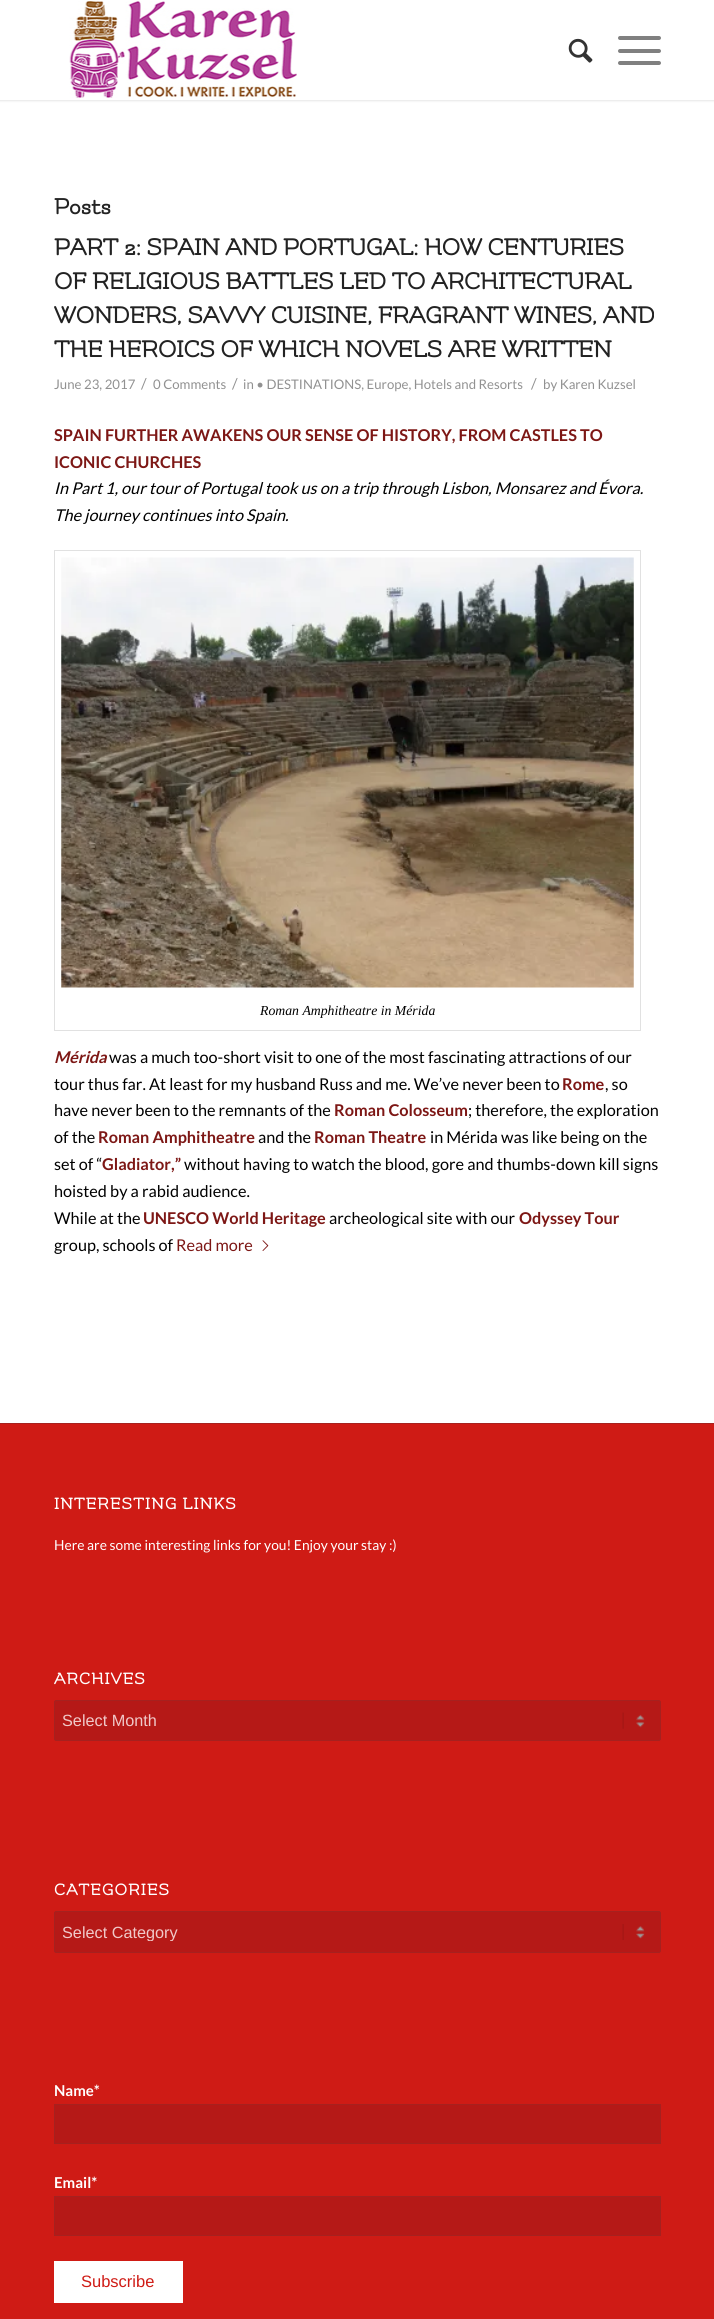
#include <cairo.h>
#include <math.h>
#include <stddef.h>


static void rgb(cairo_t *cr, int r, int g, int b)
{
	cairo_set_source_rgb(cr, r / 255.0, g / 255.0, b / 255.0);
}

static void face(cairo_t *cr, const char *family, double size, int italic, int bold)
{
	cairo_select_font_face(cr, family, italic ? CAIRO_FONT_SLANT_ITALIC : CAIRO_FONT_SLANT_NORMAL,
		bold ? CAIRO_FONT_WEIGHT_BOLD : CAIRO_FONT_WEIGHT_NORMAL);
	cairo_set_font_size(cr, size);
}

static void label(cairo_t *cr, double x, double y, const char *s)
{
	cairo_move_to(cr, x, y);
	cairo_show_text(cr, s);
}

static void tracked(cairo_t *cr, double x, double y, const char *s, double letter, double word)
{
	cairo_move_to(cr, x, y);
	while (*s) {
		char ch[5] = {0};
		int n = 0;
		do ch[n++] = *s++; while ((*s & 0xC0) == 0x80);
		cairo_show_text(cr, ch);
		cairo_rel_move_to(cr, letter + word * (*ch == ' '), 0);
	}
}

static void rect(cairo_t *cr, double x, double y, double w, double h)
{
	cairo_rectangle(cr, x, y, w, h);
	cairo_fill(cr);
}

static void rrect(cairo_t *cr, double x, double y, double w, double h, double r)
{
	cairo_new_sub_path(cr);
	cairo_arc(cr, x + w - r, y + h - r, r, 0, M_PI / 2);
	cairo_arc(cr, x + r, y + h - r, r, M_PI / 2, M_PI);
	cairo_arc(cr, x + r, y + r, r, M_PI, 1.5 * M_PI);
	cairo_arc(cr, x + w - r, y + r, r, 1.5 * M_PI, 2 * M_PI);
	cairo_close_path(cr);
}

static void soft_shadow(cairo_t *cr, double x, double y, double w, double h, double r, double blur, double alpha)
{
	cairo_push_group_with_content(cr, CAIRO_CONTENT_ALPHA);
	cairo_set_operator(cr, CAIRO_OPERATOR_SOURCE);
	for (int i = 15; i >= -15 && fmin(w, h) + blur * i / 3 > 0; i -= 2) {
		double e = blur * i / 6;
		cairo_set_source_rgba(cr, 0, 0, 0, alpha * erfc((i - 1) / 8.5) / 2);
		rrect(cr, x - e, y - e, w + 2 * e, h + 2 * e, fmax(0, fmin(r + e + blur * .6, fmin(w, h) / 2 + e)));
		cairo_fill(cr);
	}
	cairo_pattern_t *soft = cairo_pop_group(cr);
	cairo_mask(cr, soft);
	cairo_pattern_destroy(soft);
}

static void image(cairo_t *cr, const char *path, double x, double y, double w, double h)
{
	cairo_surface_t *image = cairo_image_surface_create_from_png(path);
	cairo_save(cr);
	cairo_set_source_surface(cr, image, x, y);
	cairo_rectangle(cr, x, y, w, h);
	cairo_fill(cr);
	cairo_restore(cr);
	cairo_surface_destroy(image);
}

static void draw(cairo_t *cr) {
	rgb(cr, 255, 255, 255);
	cairo_paint(cr);
	rgb(cr, 0, 0, 0);
	soft_shadow(cr, -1, -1, 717, 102, 0, 1, 0.1);
	rgb(cr, 255, 255, 255);
	rect(cr, 0, 0, 714, 100);
	image(cr, "image0.png", 69, 1, 228, 97);
	image(cr, "image1.png", 568, 38, 25, 25);
	rgb(cr, 128, 128, 128);
	rrect(cr, 618, 49, 43, 4, 2);
	cairo_fill(cr);
	rrect(cr, 618, 36, 43, 4, 2);
	cairo_fill(cr);
	rrect(cr, 618, 61, 43, 4, 2);
	cairo_fill(cr);
	face(cr, "Flamenco", 25, 0, 1);
	rgb(cr, 34, 34, 34);
	label(cr, 54, 214, "Posts");
	face(cr, "Flamenco", 26.25, 0, 1);
	label(cr, 54, 255, "PART 2: SPAIN AND PORTUGAL: HOW CENTURIES");
	label(cr, 54, 289, "OF RELIGIOUS BATTLES LED TO ARCHITECTURAL");
	label(cr, 54, 323, "WONDERS, SAVVY CUISINE, FRAGRANT WINES, AND");
	label(cr, 54, 357, "THE HEROICS OF WHICH NOVELS ARE WRITTEN");
	face(cr, "Lato", 13.2, 0, 0);
	rgb(cr, 145, 145, 145);
	label(cr, 54, 389, "June 23, 2017");
	face(cr, "Lato", 15, 0, 0);
	label(cr, 141, 389, "/");
	face(cr, "Lato", 13.2, 0, 0);
	label(cr, 153, 389, "0 Comments");
	face(cr, "Lato", 15, 0, 0);
	label(cr, 232, 389, "/");
	face(cr, "Lato", 13.2, 0, 0);
	label(cr, 243, 389, "in • DESTINATIONS, Europe, Hotels and Resorts");
	face(cr, "Lato", 15, 0, 0);
	label(cr, 531, 389, "/");
	face(cr, "Lato", 13.2, 0, 0);
	label(cr, 543, 389, "by Karen Kuzsel");
	face(cr, "Lato", 16.25, 0, 1);
	rgb(cr, 125, 23, 21);
	label(cr, 54, 441, "SPAIN FURTHER AWAKENS OUR SENSE OF HISTORY, FROM CASTLES TO");
	label(cr, 54, 468, "ICONIC CHURCHES");
	face(cr, "Lato", 16.25, 1, 0);
	rgb(cr, 0, 0, 0);
	label(cr, 54, 494, "In Part 1, our tour of Portugal took us on a trip through Lisbon, Monsarez and Évora.");
	label(cr, 54, 521, "The journey continues into Spain.");
	cairo_rectangle(cr, 54.5, 550.5, 586, 480);
	rgb(cr, 225, 225, 225);
	cairo_set_line_width(cr, 1);
	cairo_stroke(cr);
	image(cr, "image2.png", 61, 557, 573, 431);
	face(cr, "Liberation Serif", 13.75, 1, 0);
	rgb(cr, 0, 0, 0);
	label(cr, 260, 1015, "Roman Amphitheatre in Mérida");
	face(cr, "Lato", 16.25, 1, 1);
	rgb(cr, 125, 23, 21);
	label(cr, 54, 1063, "Mérida");
	face(cr, "Lato", 16.25, 0, 0);
	rgb(cr, 0, 0, 0);
	label(cr, 109, 1063, "was a much too-short visit to one of the most fascinating attractions of our");
	label(cr, 54, 1090, "tour thus far. At least for my husband Russ and me. We’ve never been to");
	face(cr, "Lato", 16.25, 0, 1);
	rgb(cr, 125, 23, 21);
	label(cr, 562, 1090, "Rome");
	face(cr, "Lato", 16.25, 0, 0);
	rgb(cr, 0, 0, 0);
	label(cr, 605, 1090, ", so");
	label(cr, 54, 1116, "have never been to the remnants of the");
	face(cr, "Lato", 16.25, 0, 1);
	rgb(cr, 125, 23, 21);
	label(cr, 334, 1116, "Roman Colosseum");
	face(cr, "Lato", 16.25, 0, 0);
	rgb(cr, 0, 0, 0);
	label(cr, 468, 1116, "; therefore, the exploration");
	label(cr, 54, 1143, "of the");
	face(cr, "Lato", 16.25, 0, 1);
	rgb(cr, 125, 23, 21);
	label(cr, 98, 1143, "Roman Amphitheatre");
	face(cr, "Lato", 16.25, 0, 0);
	rgb(cr, 0, 0, 0);
	label(cr, 258, 1143, "and the");
	face(cr, "Lato", 16.25, 0, 1);
	rgb(cr, 125, 23, 21);
	label(cr, 314, 1143, "Roman Theatre");
	face(cr, "Lato", 16.25, 0, 0);
	rgb(cr, 0, 0, 0);
	label(cr, 430, 1143, "in Mérida was like being on the");
	label(cr, 54, 1170, "set of “");
	face(cr, "Lato", 16.25, 0, 1);
	rgb(cr, 125, 23, 21);
	label(cr, 102, 1170, "Gladiator,”");
	face(cr, "Lato", 16.25, 0, 0);
	rgb(cr, 0, 0, 0);
	label(cr, 184, 1170, "without having to watch the blood, gore and thumbs-down kill signs");
	label(cr, 54, 1197, "hoisted by a rabid audience.");
	label(cr, 54, 1224, "While at the");
	face(cr, "Lato", 16.25, 0, 1);
	rgb(cr, 125, 23, 21);
	label(cr, 143, 1224, "UNESCO World Heritage");
	face(cr, "Lato", 16.25, 0, 0);
	rgb(cr, 0, 0, 0);
	label(cr, 329, 1224, "archeological site with our");
	face(cr, "Lato", 16.25, 0, 1);
	rgb(cr, 125, 23, 21);
	label(cr, 519, 1224, "Odyssey Tour");
	face(cr, "Lato", 16.25, 0, 0);
	rgb(cr, 0, 0, 0);
	label(cr, 54, 1251, "group, schools of");
	rgb(cr, 125, 23, 21);
	label(cr, 176, 1251, "Read more");
	image(cr, "image3.png", 262, 1240, 7, 11);
	rgb(cr, 207, 27, 21);
	rect(cr, 0, 1424, 714, 895);
	rgb(cr, 166, 33, 31);
	rect(cr, 0, 1423, 714, 1);
	face(cr, "Flamenco", 17.9, 0, 1);
	rgb(cr, 255, 255, 255);
	tracked(cr, 54, 1509, "INTERESTING LINKS", 1.25, 0);
	face(cr, "Lato", 13.8, 0, 0);
	label(cr, 54, 1550, "Here are some interesting links for you! Enjoy your stay :)");
	face(cr, "Flamenco", 17.9, 0, 1);
	tracked(cr, 54, 1684, "ARCHIVES", 1.25, 0);
	rgb(cr, 181, 25, 23);
	rrect(cr, 54, 1700, 607, 41, 2.5);
	cairo_fill(cr);
	image(cr, "image4.png", 622, 1712, 23, 17);
	rrect(cr, 54.5, 1700.5, 606, 40, 2);
	rgb(cr, 166, 33, 31);
	cairo_stroke(cr);
	face(cr, "Liberation Sans", 16.25, 0, 0);
	rgb(cr, 240, 201, 201);
	label(cr, 62, 1726, "Select Month");
	face(cr, "Flamenco", 17.9, 0, 1);
	rgb(cr, 255, 255, 255);
	tracked(cr, 54, 1895, "CATEGORIES", 1.25, 0);
	rgb(cr, 181, 25, 23);
	rrect(cr, 54, 1911, 607, 42, 2.5);
	cairo_fill(cr);
	image(cr, "image5.png", 622, 1924, 23, 16);
	rrect(cr, 54.5, 1911.5, 606, 41, 2);
	rgb(cr, 166, 33, 31);
	cairo_stroke(cr);
	cairo_save(cr);
	cairo_rectangle(cr, 63, 1923, 590, 18);
	cairo_clip(cr);
	face(cr, "Liberation Sans", 16.25, 0, 0);
	rgb(cr, 240, 201, 201);
	label(cr, 62, 1938, "Select Category");
	cairo_restore(cr);
	face(cr, "Lato", 15, 0, 1);
	rgb(cr, 255, 255, 255);
	label(cr, 54, 2096, "Name*");
	rgb(cr, 181, 25, 23);
	cairo_rectangle(cr, 54.5, 2104.5, 606, 39);
	cairo_fill_preserve(cr);
	rgb(cr, 166, 33, 31);
	cairo_stroke(cr);
	rgb(cr, 255, 255, 255);
	label(cr, 54, 2188, "Email*");
	rgb(cr, 181, 25, 23);
	cairo_rectangle(cr, 54.5, 2196.5, 606, 39);
	cairo_fill_preserve(cr);
	rgb(cr, 166, 33, 31);
	cairo_stroke(cr);
	rgb(cr, 255, 255, 255);
	rect(cr, 54, 2261, 129, 42);
	face(cr, "Liberation Sans", 16.5, 0, 0);
	rgb(cr, 207, 27, 21);
	label(cr, 81, 2287, "Subscribe");
}

int main(void) {
	cairo_surface_t *surface = cairo_image_surface_create(CAIRO_FORMAT_RGB24, 714, 2319);
	cairo_t *cr = cairo_create(surface);
	cairo_font_options_t *options = cairo_font_options_create();
	cairo_font_options_set_hint_metrics(options, CAIRO_HINT_METRICS_OFF);
	cairo_font_options_set_hint_style(options, CAIRO_HINT_STYLE_NONE);
	cairo_set_font_options(cr, options);
	cairo_set_miter_limit(cr, 4);
	draw(cr);
	cairo_surface_write_to_png(surface, "render.png");
	cairo_font_options_destroy(options);
	cairo_destroy(cr);
	cairo_surface_destroy(surface);
	return 0;
}
